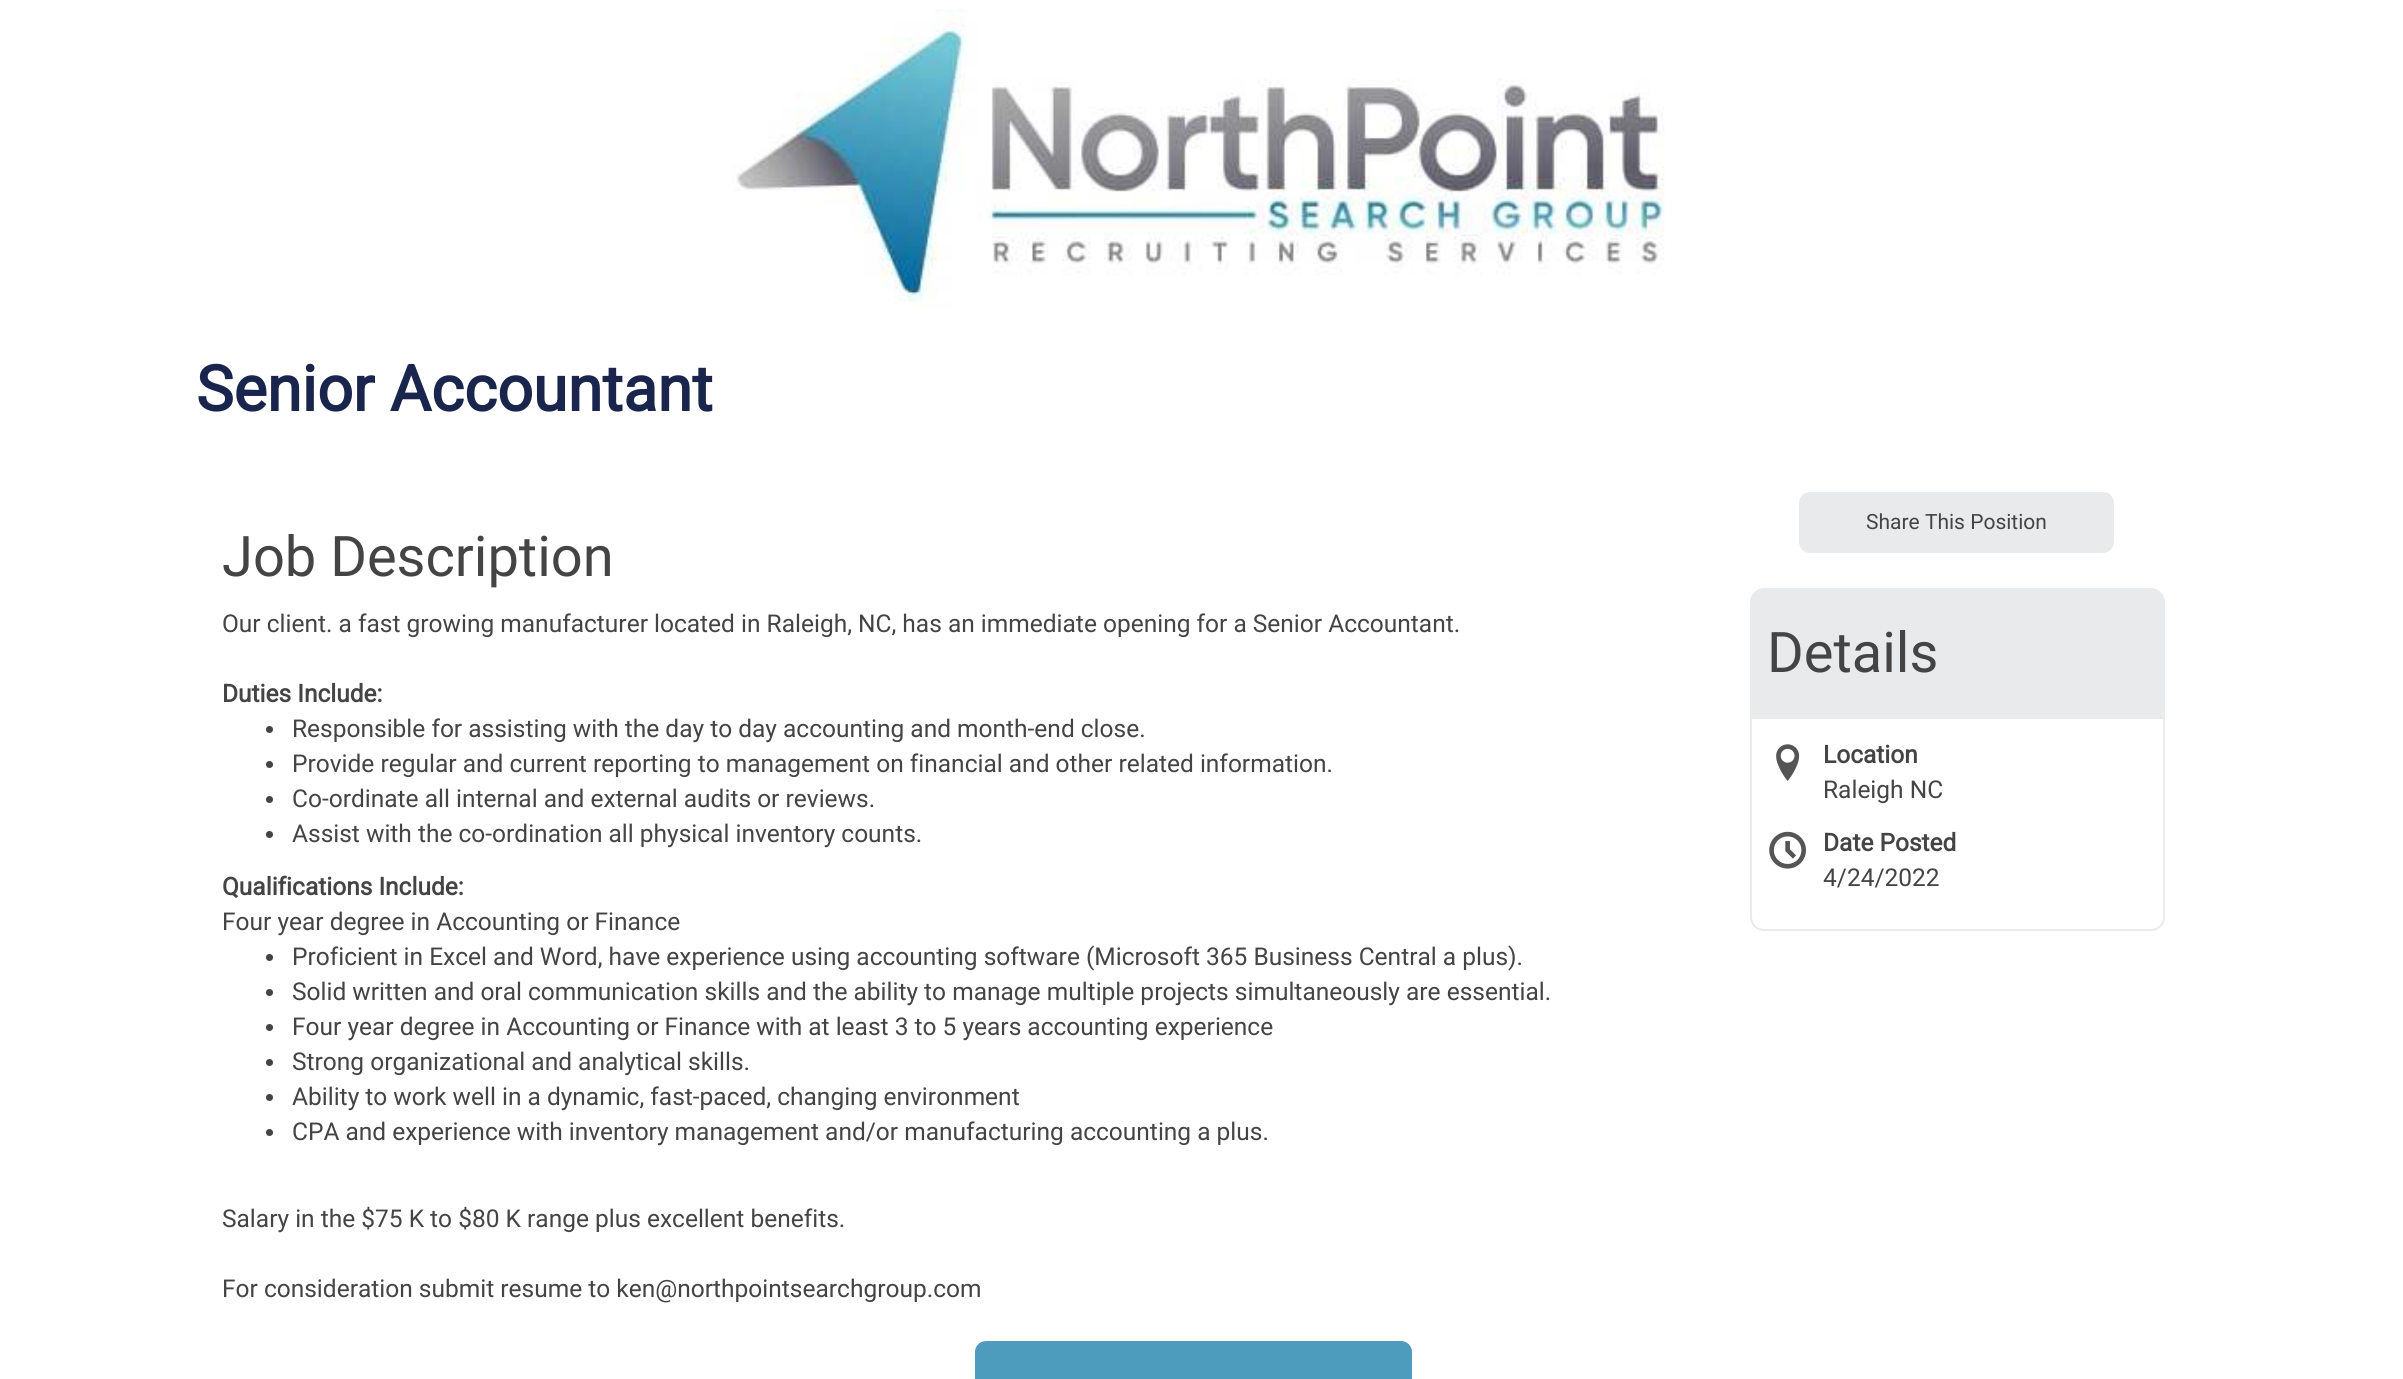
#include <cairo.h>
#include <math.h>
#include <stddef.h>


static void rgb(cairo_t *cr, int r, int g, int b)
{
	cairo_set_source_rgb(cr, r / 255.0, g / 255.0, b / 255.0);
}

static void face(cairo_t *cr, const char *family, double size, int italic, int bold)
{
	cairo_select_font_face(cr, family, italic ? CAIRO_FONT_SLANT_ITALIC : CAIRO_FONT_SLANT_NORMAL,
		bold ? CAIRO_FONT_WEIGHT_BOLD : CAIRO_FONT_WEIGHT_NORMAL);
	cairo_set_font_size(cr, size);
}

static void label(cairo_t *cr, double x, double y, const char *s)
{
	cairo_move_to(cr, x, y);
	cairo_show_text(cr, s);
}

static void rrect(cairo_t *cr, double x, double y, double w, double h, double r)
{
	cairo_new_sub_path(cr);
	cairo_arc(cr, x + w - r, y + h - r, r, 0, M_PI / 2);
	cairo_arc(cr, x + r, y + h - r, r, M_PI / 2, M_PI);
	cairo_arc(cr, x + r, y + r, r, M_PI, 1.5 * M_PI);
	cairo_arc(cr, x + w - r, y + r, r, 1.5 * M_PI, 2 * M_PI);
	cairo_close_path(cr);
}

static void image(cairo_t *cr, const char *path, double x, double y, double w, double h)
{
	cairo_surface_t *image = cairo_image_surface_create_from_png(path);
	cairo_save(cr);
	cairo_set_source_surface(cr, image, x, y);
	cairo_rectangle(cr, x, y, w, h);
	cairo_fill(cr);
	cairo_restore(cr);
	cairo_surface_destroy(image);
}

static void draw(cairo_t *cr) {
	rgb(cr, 255, 255, 255);
	cairo_paint(cr);
	image(cr, "image0.png", 732, 9, 933, 299);
	face(cr, "Roboto", 63, 0, 1);
	rgb(cr, 25, 37, 76);
	label(cr, 196, 411, "Senior Accountant");
	face(cr, "Roboto", 56, 0, 0);
	rgb(cr, 68, 68, 68);
	label(cr, 222, 576, "Job Description");
	face(cr, "Roboto", 24.5, 0, 0);
	label(cr, 222, 632, "Our client. a fast growing manufacturer located in Raleigh, NC, has an immediate opening for a Senior Accountant.");
	face(cr, "Roboto", 24.5, 0, 1);
	label(cr, 222, 702, "Duties Include:");
	cairo_new_path(cr);
	cairo_arc(cr, 269.5, 729.5, 3.5, 0, 2 * M_PI);
	cairo_fill(cr);
	face(cr, "Roboto", 24.5, 0, 0);
	label(cr, 292, 737, "Responsible for assisting with the day to day accounting and month-end close.");
	cairo_new_path(cr);
	cairo_arc(cr, 269.5, 764.5, 3.5, 0, 2 * M_PI);
	cairo_fill(cr);
	label(cr, 292, 772, "Provide regular and current reporting to management on financial and other related information.");
	cairo_new_path(cr);
	cairo_arc(cr, 269.5, 799.5, 3.5, 0, 2 * M_PI);
	cairo_fill(cr);
	label(cr, 292, 807, "Co-ordinate all internal and external audits or reviews.");
	cairo_new_path(cr);
	cairo_arc(cr, 269.5, 834.5, 3.5, 0, 2 * M_PI);
	cairo_fill(cr);
	label(cr, 292, 842, "Assist with the co-ordination all physical inventory counts.");
	face(cr, "Roboto", 24.5, 0, 1);
	label(cr, 222, 895, "Qualifications Include:");
	face(cr, "Roboto", 24.5, 0, 0);
	label(cr, 222, 930, "Four year degree in Accounting or Finance");
	cairo_new_path(cr);
	cairo_arc(cr, 269.5, 957.5, 3.5, 0, 2 * M_PI);
	cairo_fill(cr);
	label(cr, 292, 965, "Proficient in Excel and Word, have experience using accounting software (Microsoft 365 Business Central a plus).");
	cairo_new_path(cr);
	cairo_arc(cr, 269.5, 992.5, 3.5, 0, 2 * M_PI);
	cairo_fill(cr);
	label(cr, 292, 1000, "Solid written and oral communication skills and the ability to manage multiple projects simultaneously are essential.");
	cairo_new_path(cr);
	cairo_arc(cr, 269.5, 1027.5, 3.5, 0, 2 * M_PI);
	cairo_fill(cr);
	label(cr, 292, 1035, "Four year degree in Accounting or Finance with at least 3 to 5 years accounting experience");
	cairo_new_path(cr);
	cairo_arc(cr, 269.5, 1062.5, 3.5, 0, 2 * M_PI);
	cairo_fill(cr);
	label(cr, 292, 1070, "Strong organizational and analytical skills.");
	cairo_new_path(cr);
	cairo_arc(cr, 269.5, 1097.5, 3.5, 0, 2 * M_PI);
	cairo_fill(cr);
	label(cr, 292, 1105, "Ability to work well in a dynamic, fast-paced, changing environment");
	cairo_new_path(cr);
	cairo_arc(cr, 269.5, 1132.5, 3.5, 0, 2 * M_PI);
	cairo_fill(cr);
	label(cr, 292, 1140, "CPA and experience with inventory management and/or manufacturing accounting a plus.");
	label(cr, 222, 1227, "Salary in the $75 K to $80 K range plus excellent benefits.");
	label(cr, 222, 1297, "For consideration submit resume to ken@northpointsearchgroup.com");
	rgb(cr, 232, 234, 235);
	rrect(cr, 1799, 492, 315, 61, 11);
	cairo_fill(cr);
	face(cr, "Roboto", 21, 0, 0);
	rgb(cr, 68, 68, 68);
	label(cr, 1866, 529, "Share This Position");
	rgb(cr, 232, 234, 235);
	cairo_new_path(cr);
	cairo_move_to(cr, 1764, 588);
	cairo_line_to(cr, 2151, 588);
	cairo_curve_to(cr, 2158.5, 588, 2165, 594.5, 2165, 602);
	cairo_line_to(cr, 2165, 719);
	cairo_line_to(cr, 1750, 719);
	cairo_line_to(cr, 1750, 602);
	cairo_curve_to(cr, 1750, 594.5, 1756.5, 588, 1764, 588);
	cairo_close_path(cr);
	cairo_fill(cr);
	face(cr, "Roboto", 56, 0, 0);
	rgb(cr, 68, 68, 68);
	label(cr, 1767, 672, "Details");
	rgb(cr, 232, 234, 235);
	cairo_set_fill_rule(cr, CAIRO_FILL_RULE_EVEN_ODD);
	cairo_new_path(cr);
	cairo_move_to(cr, 1750, 719);
	cairo_line_to(cr, 2165, 719);
	cairo_line_to(cr, 2165, 917);
	cairo_curve_to(cr, 2165, 925, 2158, 931, 2151, 931);
	cairo_line_to(cr, 1764, 931);
	cairo_curve_to(cr, 1756, 931, 1750, 925, 1750, 917);
	cairo_close_path(cr);
	cairo_move_to(cr, 1752, 719);
	cairo_line_to(cr, 2163, 719);
	cairo_line_to(cr, 2163, 917);
	cairo_curve_to(cr, 2163, 924, 2158, 929, 2151, 929);
	cairo_line_to(cr, 1764, 929);
	cairo_curve_to(cr, 1757, 929, 1752, 924, 1752, 917);
	cairo_close_path(cr);
	cairo_fill(cr);
	image(cr, "image1.png", 1776, 744, 24, 37);
	face(cr, "Roboto", 24.5, 0, 1);
	rgb(cr, 68, 68, 68);
	label(cr, 1823, 763, "Location");
	face(cr, "Roboto", 24.5, 0, 0);
	label(cr, 1823, 798, "Raleigh NC");
	image(cr, "image2.png", 1769, 831, 37, 38);
	face(cr, "Roboto", 24.5, 0, 1);
	label(cr, 1823, 851, "Date Posted");
	face(cr, "Roboto", 24.5, 0, 0);
	label(cr, 1823, 886, "4/24/2022");
	rgb(cr, 77, 156, 189);
	rrect(cr, 975, 1341, 437, 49, 11);
	cairo_fill(cr);
}

int main(void) {
	cairo_surface_t *surface = cairo_image_surface_create(CAIRO_FORMAT_RGB24, 2403, 1379);
	cairo_t *cr = cairo_create(surface);
	cairo_font_options_t *options = cairo_font_options_create();
	cairo_font_options_set_hint_metrics(options, CAIRO_HINT_METRICS_OFF);
	cairo_font_options_set_hint_style(options, CAIRO_HINT_STYLE_NONE);
	cairo_set_font_options(cr, options);
	cairo_set_miter_limit(cr, 4);
	draw(cr);
	cairo_surface_write_to_png(surface, "render.png");
	cairo_font_options_destroy(options);
	cairo_destroy(cr);
	cairo_surface_destroy(surface);
	return 0;
}
